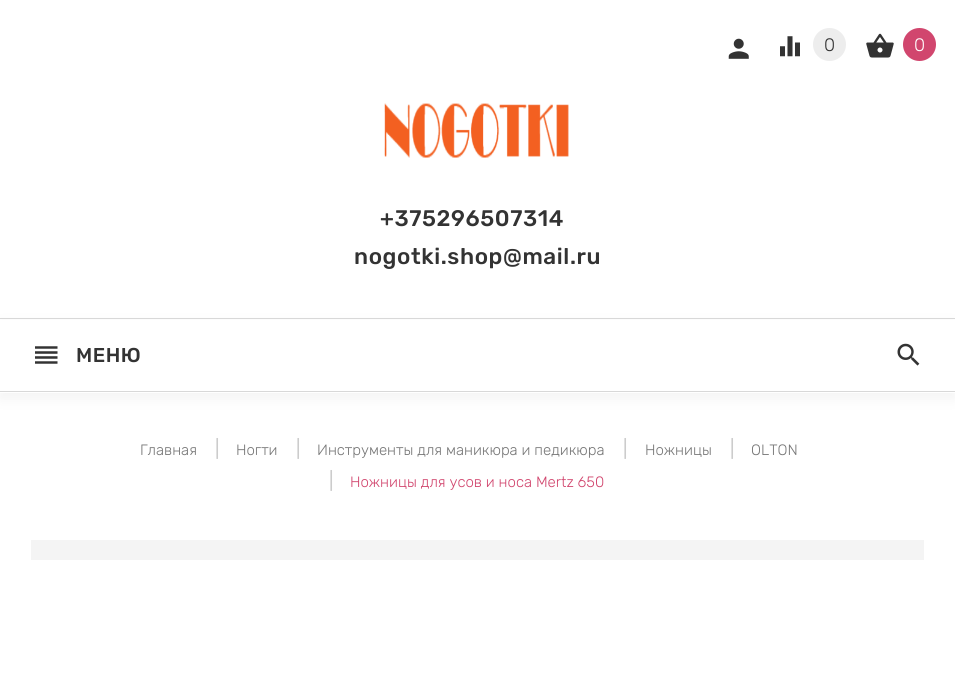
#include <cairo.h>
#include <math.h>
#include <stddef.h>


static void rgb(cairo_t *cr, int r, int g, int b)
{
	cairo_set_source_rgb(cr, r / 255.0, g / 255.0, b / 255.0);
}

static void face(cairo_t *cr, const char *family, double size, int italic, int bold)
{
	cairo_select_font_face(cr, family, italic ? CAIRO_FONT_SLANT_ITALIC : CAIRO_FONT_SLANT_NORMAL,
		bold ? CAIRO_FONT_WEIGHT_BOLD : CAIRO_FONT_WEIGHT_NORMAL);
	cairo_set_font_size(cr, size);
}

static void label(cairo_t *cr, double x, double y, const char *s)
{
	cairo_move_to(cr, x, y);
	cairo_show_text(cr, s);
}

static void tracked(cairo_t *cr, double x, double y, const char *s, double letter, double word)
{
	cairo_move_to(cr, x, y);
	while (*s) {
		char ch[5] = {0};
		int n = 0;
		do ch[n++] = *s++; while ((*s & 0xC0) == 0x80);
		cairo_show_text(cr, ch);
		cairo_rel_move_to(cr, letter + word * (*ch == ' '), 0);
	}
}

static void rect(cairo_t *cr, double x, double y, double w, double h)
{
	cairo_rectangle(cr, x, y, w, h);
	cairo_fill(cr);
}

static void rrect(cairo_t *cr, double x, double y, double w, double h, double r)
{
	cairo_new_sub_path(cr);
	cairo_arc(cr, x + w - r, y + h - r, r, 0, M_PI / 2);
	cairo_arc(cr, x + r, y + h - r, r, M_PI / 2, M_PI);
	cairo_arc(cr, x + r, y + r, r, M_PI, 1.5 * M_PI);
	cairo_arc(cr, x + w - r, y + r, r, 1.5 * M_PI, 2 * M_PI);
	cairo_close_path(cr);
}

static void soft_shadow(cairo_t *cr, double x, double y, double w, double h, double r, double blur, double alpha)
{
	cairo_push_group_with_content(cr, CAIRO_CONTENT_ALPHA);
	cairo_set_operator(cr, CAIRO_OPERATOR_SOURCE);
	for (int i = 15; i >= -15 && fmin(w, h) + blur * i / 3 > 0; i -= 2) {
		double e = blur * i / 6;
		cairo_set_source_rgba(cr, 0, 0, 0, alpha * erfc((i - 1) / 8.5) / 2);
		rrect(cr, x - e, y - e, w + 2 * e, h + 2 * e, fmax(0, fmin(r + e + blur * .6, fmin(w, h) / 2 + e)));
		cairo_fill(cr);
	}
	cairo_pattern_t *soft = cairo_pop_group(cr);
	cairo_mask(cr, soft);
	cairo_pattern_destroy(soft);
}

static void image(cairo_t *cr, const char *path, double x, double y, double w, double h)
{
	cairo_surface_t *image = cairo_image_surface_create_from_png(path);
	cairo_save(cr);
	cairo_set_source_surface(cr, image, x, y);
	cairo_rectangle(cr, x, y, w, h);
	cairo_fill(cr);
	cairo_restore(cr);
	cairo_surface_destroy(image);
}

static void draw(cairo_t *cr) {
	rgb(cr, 255, 255, 255);
	cairo_paint(cr);
	image(cr, "image0.png", 728, 38, 21, 21);
	image(cr, "image1.png", 780, 36, 20, 21);
	rgb(cr, 237, 237, 237);
	cairo_arc(cr, 829.5, 44.5, 16.5, 0, 2 * M_PI);
	cairo_fill(cr);
	face(cr, "Rubik Light", 18, 0, 0);
	rgb(cr, 51, 51, 51);
	tracked(cr, 824, 51, "0", 0.5, 0);
	image(cr, "image2.png", 866, 33, 28, 25);
	rgb(cr, 209, 70, 110);
	cairo_arc(cr, 919.5, 44.5, 16.5, 0, 2 * M_PI);
	cairo_fill(cr);
	rgb(cr, 255, 255, 255);
	tracked(cr, 914, 51, "0", 0.5, 0);
	image(cr, "image3.png", 384, 103, 185, 55);
	face(cr, "Rubik Medium", 22.5, 0, 0);
	rgb(cr, 51, 51, 51);
	tracked(cr, 380, 226, "+375296507314", 0.6, 0);
	tracked(cr, 354, 264, "nogotki.shop@mail.ru", 0.6, 0);
	rgb(cr, 244, 244, 244);
	soft_shadow(cr, 0, 324, 955, 75, 0, 6, 1);
	rgb(cr, 255, 255, 255);
	rect(cr, 0, 320, 955, 73);
	rgb(cr, 216, 216, 216);
	rect(cr, 0, 318, 955, 1);
	rect(cr, 0, 391, 955, 1);
	image(cr, "image4.png", 35, 346, 23, 18);
	face(cr, "Rubik Medium", 20, 0, 0);
	rgb(cr, 51, 51, 51);
	tracked(cr, 76, 362, "МЕНЮ", 0.5, 0);
	image(cr, "image5.png", 897, 343, 23, 23);
	face(cr, "Rubik Light", 15, 0, 0);
	rgb(cr, 119, 119, 119);
	label(cr, 140, 455, "Главная");
	face(cr, "Rubik", 19, 0, 0);
	rgb(cr, 204, 204, 204);
	label(cr, 215, 455, "|");
	face(cr, "Rubik Light", 15, 0, 0);
	rgb(cr, 119, 119, 119);
	label(cr, 236, 455, "Ногти");
	face(cr, "Rubik", 19, 0, 0);
	rgb(cr, 204, 204, 204);
	label(cr, 296, 455, "|");
	face(cr, "Rubik Light", 15, 0, 0);
	rgb(cr, 119, 119, 119);
	label(cr, 317, 455, "Инструменты для маникюра и педикюра");
	face(cr, "Rubik", 19, 0, 0);
	rgb(cr, 204, 204, 204);
	label(cr, 623, 455, "|");
	face(cr, "Rubik Light", 15, 0, 0);
	rgb(cr, 119, 119, 119);
	label(cr, 645, 455, "Ножницы");
	face(cr, "Rubik", 19, 0, 0);
	rgb(cr, 204, 204, 204);
	label(cr, 730, 455, "|");
	face(cr, "Rubik Light", 15, 0, 0);
	rgb(cr, 119, 119, 119);
	label(cr, 751, 455, "OLTON");
	face(cr, "Rubik", 19, 0, 0);
	rgb(cr, 204, 204, 204);
	label(cr, 329, 487, "|");
	face(cr, "Rubik Light", 15, 0, 0);
	rgb(cr, 209, 70, 110);
	label(cr, 350, 487, "Ножницы для усов и носа Mertz 650");
	rgb(cr, 244, 244, 244);
	rect(cr, 31, 540, 893, 20);
}

int main(void) {
	cairo_surface_t *surface = cairo_image_surface_create(CAIRO_FORMAT_RGB24, 955, 678);
	cairo_t *cr = cairo_create(surface);
	cairo_font_options_t *options = cairo_font_options_create();
	cairo_font_options_set_hint_metrics(options, CAIRO_HINT_METRICS_OFF);
	cairo_font_options_set_hint_style(options, CAIRO_HINT_STYLE_NONE);
	cairo_set_font_options(cr, options);
	cairo_set_miter_limit(cr, 4);
	draw(cr);
	cairo_surface_write_to_png(surface, "render.png");
	cairo_font_options_destroy(options);
	cairo_destroy(cr);
	cairo_surface_destroy(surface);
	return 0;
}
